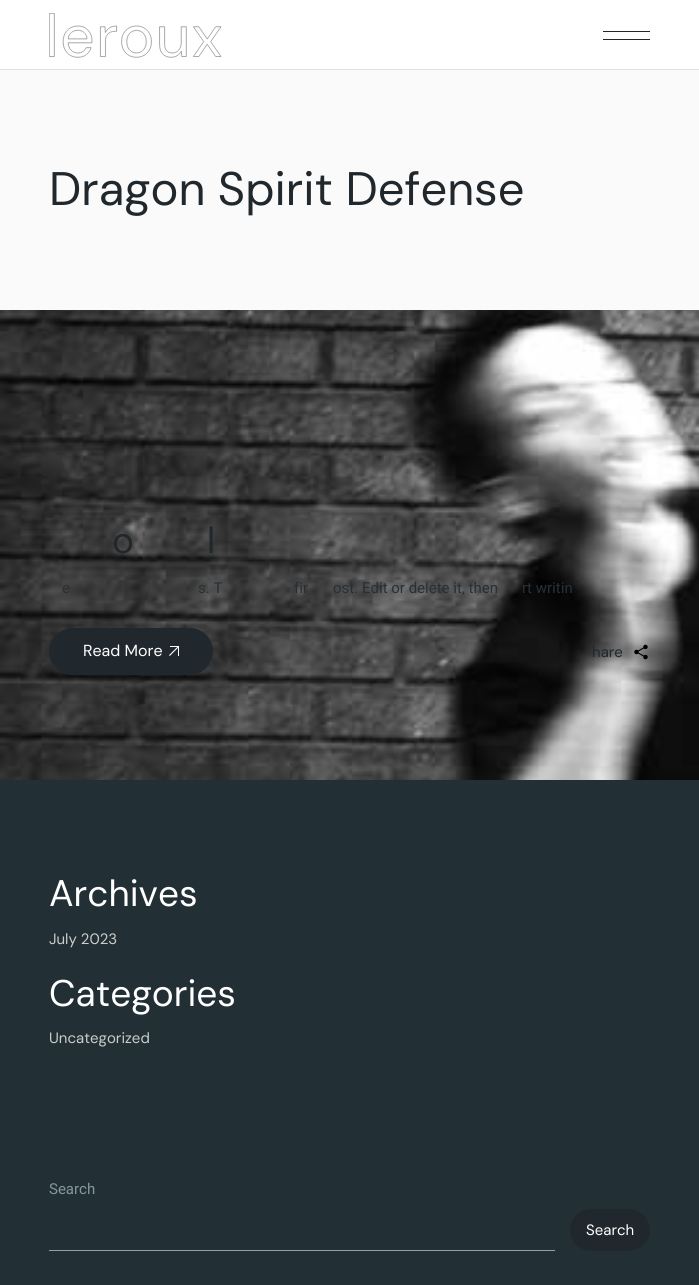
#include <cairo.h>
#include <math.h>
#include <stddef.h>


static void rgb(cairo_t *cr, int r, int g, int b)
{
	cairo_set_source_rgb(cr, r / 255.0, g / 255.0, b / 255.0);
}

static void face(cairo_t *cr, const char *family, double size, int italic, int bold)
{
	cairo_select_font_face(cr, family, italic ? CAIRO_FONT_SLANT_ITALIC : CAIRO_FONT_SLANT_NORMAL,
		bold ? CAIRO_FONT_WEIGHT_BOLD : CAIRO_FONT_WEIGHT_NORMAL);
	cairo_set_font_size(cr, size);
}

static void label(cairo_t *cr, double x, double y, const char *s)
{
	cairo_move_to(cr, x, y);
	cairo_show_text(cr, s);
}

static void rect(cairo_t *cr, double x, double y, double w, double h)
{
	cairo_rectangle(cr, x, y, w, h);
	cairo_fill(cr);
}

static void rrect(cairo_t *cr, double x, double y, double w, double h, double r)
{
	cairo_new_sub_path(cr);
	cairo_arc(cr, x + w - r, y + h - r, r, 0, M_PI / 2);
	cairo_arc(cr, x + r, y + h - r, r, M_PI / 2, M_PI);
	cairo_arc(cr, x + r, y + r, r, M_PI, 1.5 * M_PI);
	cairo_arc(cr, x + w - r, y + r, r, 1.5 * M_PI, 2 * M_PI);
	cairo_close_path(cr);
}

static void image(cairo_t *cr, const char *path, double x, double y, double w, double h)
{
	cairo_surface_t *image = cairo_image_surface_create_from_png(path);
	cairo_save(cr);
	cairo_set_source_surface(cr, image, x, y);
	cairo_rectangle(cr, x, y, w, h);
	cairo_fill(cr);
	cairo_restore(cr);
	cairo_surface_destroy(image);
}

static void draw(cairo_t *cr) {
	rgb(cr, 255, 255, 255);
	cairo_paint(cr);
	image(cr, "image0.png", 0, 310, 699, 470);
	rgb(cr, 225, 225, 225);
	rect(cr, 0, 69, 699, 1);
	image(cr, "image1.png", 49, 13, 173, 45);
	rgb(cr, 32, 40, 45);
	rect(cr, 603, 31, 47, 1);
	rect(cr, 603, 39, 47, 1);
	rgb(cr, 250, 250, 250);
	rect(cr, 0, 70, 699, 240);
	face(cr, "DM Sans", 47, 0, 0);
	rgb(cr, 32, 40, 45);
	label(cr, 49, 205, "Dragon Spirit Defense");
	face(cr, "DM Sans", 37, 0, 0);
	label(cr, 112, 553, "o");
	label(cr, 207, 553, "l");
	face(cr, "Heebo", 15, 0, 0);
	rgb(cr, 38, 48, 55);
	label(cr, 62, 593, "e");
	label(cr, 198, 593, "s. T");
	label(cr, 294, 593, "fir");
	label(cr, 333, 593, "ost. Edit or delete it, then");
	label(cr, 522, 593, "rt writin");
	rgb(cr, 32, 40, 45);
	rrect(cr, 49, 628, 164, 47, 23.5);
	cairo_fill(cr);
	face(cr, "DM Sans", 16, 0, 0);
	rgb(cr, 255, 255, 255);
	label(cr, 83, 656, "Read More");
	image(cr, "image2.png", 169, 646, 10, 10);
	face(cr, "DM Sans", 15, 0, 0);
	rgb(cr, 32, 40, 45);
	label(cr, 592, 657, "hare");
	image(cr, "image3.png", 634, 644, 14, 16);
	rgb(cr, 34, 48, 53);
	rect(cr, 0, 780, 699, 505);
	face(cr, "DM Sans", 37, 0, 0);
	rgb(cr, 255, 255, 255);
	label(cr, 49, 906, "Archives");
	face(cr, "DM Sans", 15, 0, 0);
	rgb(cr, 204, 204, 204);
	label(cr, 49, 944, "July 2023");
	face(cr, "DM Sans", 37, 0, 0);
	rgb(cr, 255, 255, 255);
	label(cr, 49, 1006, "Categories");
	face(cr, "DM Sans", 15, 0, 0);
	rgb(cr, 204, 204, 204);
	label(cr, 49, 1043, "Uncategorized");
	face(cr, "Heebo", 15, 0, 0);
	rgb(cr, 133, 151, 155);
	label(cr, 49, 1194, "Search");
	rgb(cr, 32, 40, 45);
	rrect(cr, 570, 1209, 80, 42, 21);
	cairo_fill(cr);
	face(cr, "DM Sans", 15, 0, 0);
	rgb(cr, 255, 255, 255);
	label(cr, 586, 1235, "Search");
	rgb(cr, 150, 162, 162);
	rect(cr, 49, 1250, 506, 1);
}

int main(void) {
	cairo_surface_t *surface = cairo_image_surface_create(CAIRO_FORMAT_RGB24, 699, 1285);
	cairo_t *cr = cairo_create(surface);
	cairo_font_options_t *options = cairo_font_options_create();
	cairo_font_options_set_hint_metrics(options, CAIRO_HINT_METRICS_OFF);
	cairo_font_options_set_hint_style(options, CAIRO_HINT_STYLE_NONE);
	cairo_set_font_options(cr, options);
	cairo_set_miter_limit(cr, 4);
	draw(cr);
	cairo_surface_write_to_png(surface, "render.png");
	cairo_font_options_destroy(options);
	cairo_destroy(cr);
	cairo_surface_destroy(surface);
	return 0;
}
